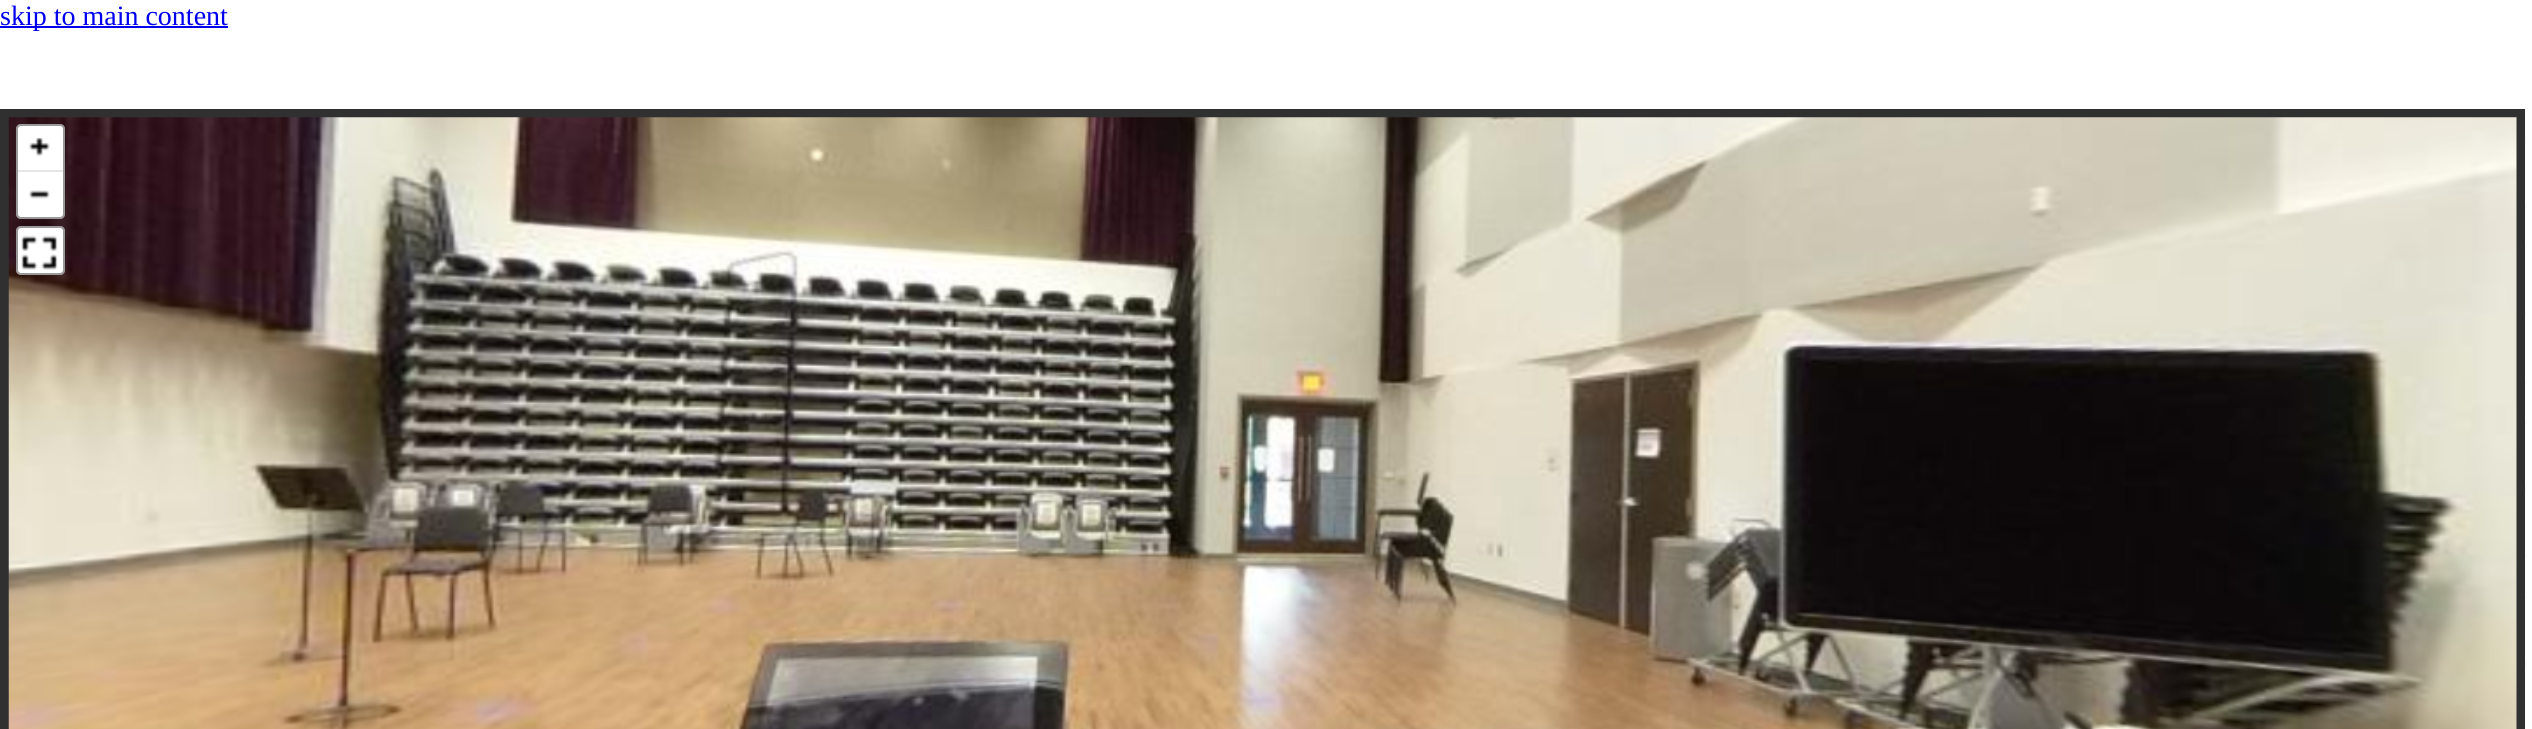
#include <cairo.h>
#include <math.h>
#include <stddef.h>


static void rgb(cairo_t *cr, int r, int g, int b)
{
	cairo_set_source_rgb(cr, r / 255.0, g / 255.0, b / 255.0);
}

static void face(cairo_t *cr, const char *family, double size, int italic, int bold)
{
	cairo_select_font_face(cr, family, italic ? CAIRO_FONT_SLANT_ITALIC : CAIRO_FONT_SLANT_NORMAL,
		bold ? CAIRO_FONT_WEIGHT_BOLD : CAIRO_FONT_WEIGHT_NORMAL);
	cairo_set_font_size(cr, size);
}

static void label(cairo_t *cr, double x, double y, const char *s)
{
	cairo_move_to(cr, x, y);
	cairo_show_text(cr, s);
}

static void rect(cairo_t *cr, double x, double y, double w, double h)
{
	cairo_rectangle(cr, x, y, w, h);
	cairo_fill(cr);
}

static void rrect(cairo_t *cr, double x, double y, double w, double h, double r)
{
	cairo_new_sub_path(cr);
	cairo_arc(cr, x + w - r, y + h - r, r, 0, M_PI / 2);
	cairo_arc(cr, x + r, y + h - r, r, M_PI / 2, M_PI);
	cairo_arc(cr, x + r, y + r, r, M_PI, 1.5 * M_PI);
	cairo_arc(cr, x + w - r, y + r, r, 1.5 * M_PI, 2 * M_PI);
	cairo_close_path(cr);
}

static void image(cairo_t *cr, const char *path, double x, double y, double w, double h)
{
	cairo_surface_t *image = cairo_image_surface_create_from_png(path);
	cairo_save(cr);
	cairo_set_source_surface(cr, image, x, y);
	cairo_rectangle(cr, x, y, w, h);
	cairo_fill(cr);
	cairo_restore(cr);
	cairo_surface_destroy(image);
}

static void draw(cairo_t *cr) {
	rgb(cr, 255, 255, 255);
	cairo_paint(cr);
	rgb(cr, 0, 0, 238);
	rect(cr, 0, 26, 228, 2);
	face(cr, "Liberation Serif", 28, 0, 0);
	label(cr, 0, 25, "skip to main content");
	image(cr, "image0.png", 2525, 136, 1, 532);
	cairo_rectangle(cr, 4.5, 113.5, 2516, 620);
	rgb(cr, 48, 48, 48);
	cairo_set_line_width(cr, 9);
	cairo_stroke(cr);
	image(cr, "image1.png", 8, 117, 2509, 612);
	rgb(cr, 255, 255, 255);
	rrect(cr, 16, 124, 49, 95, 5);
	cairo_fill(cr);
	rrect(cr, 17, 125, 47, 93, 4);
	cairo_set_source_rgba(cr, 0, 0, 0, 0.4);
	cairo_set_line_width(cr, 2);
	cairo_stroke(cr);
	image(cr, "image2.png", 29, 137, 21, 20);
	image(cr, "image3.png", 29, 190, 21, 9);
	rgb(cr, 230, 230, 230);
	rect(cr, 18, 170, 45, 2);
	rgb(cr, 255, 255, 255);
	rrect(cr, 16, 226, 49, 49, 5);
	cairo_fill(cr);
	image(cr, "image4.png", 21, 235, 37, 35);
	rrect(cr, 17, 227, 47, 47, 4);
	cairo_set_source_rgba(cr, 0, 0, 0, 0.4);
	cairo_stroke(cr);
}

int main(void) {
	cairo_surface_t *surface = cairo_image_surface_create(CAIRO_FORMAT_RGB24, 2532, 729);
	cairo_t *cr = cairo_create(surface);
	cairo_font_options_t *options = cairo_font_options_create();
	cairo_font_options_set_hint_metrics(options, CAIRO_HINT_METRICS_OFF);
	cairo_font_options_set_hint_style(options, CAIRO_HINT_STYLE_NONE);
	cairo_set_font_options(cr, options);
	cairo_set_miter_limit(cr, 4);
	draw(cr);
	cairo_surface_write_to_png(surface, "render.png");
	cairo_font_options_destroy(options);
	cairo_destroy(cr);
	cairo_surface_destroy(surface);
	return 0;
}
